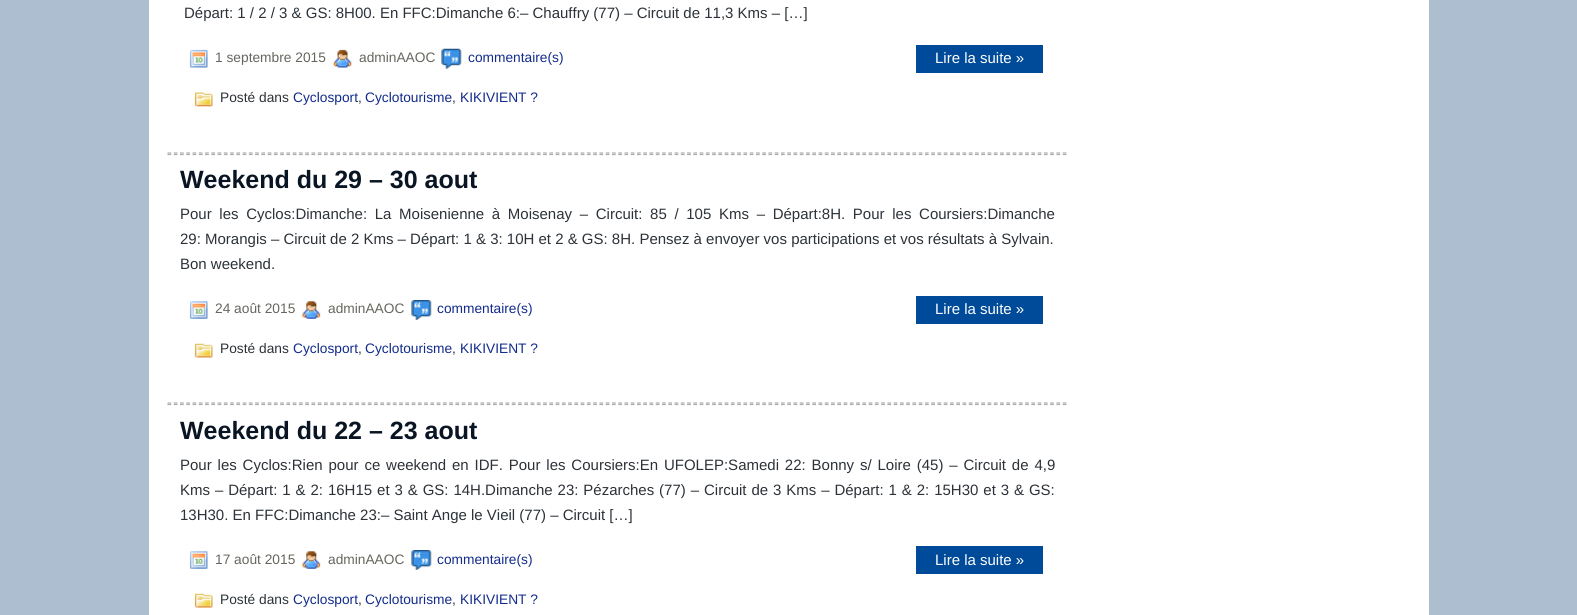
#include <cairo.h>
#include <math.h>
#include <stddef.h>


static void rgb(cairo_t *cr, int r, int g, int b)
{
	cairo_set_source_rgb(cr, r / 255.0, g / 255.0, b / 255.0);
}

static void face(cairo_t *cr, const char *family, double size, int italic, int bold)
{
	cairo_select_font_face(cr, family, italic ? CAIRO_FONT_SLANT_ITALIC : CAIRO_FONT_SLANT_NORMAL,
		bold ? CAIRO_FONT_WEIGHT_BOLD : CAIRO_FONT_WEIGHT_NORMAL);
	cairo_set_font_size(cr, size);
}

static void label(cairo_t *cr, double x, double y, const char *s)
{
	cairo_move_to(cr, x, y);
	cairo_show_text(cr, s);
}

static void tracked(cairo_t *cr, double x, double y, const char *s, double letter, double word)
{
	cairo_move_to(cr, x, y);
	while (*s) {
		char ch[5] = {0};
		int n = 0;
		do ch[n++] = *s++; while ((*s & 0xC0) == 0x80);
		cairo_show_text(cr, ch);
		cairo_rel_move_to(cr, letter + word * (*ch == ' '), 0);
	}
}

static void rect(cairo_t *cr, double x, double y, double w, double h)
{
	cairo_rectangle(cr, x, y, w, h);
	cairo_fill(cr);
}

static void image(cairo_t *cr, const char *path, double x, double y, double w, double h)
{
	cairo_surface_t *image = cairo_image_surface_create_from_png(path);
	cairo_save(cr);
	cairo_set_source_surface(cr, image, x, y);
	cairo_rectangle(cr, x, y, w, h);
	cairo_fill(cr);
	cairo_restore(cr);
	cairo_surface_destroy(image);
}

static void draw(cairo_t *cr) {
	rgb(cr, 172, 190, 207);
	cairo_paint(cr);
	rgb(cr, 255, 255, 255);
	rect(cr, 149, 0, 1280, 615);
	cairo_new_path(cr);
	cairo_move_to(cr, 167.5, 153);
	cairo_line_to(cr, 1067.5, 153);
	rgb(cr, 172, 172, 172);
	cairo_set_line_width(cr, 1.2);
	cairo_set_dash(cr, (double[]){3.75, 2.51}, 2, 0);
	cairo_stroke(cr);
	face(cr, "Liberation Sans", 15, 0, 0);
	rgb(cr, 44, 50, 56);
	label(cr, 184, 18, "Départ: 1 / 2 / 3 & GS: 8H00. En FFC:Dimanche 6:– Chauffry (77) – Circuit de 11,3 Kms – […]");
	image(cr, "image0.png", 189, 49, 19, 19);
	face(cr, "Liberation Sans", 13.75, 0, 0);
	rgb(cr, 102, 102, 95);
	label(cr, 215, 62, "1 septembre 2015");
	image(cr, "image1.png", 333, 49, 19, 19);
	label(cr, 359, 62, "adminAAOC");
	image(cr, "image2.png", 441, 48, 21, 21);
	rgb(cr, 18, 43, 140);
	label(cr, 468, 62, "commentaire(s)");
	rgb(cr, 0, 75, 153);
	rect(cr, 916, 45, 127, 28);
	face(cr, "Liberation Sans", 15, 0, 0);
	rgb(cr, 255, 255, 255);
	label(cr, 935, 63, "Lire la suite »");
	image(cr, "image3.png", 194, 92, 19, 15);
	face(cr, "Liberation Sans", 13.75, 0, 0);
	rgb(cr, 44, 50, 56);
	label(cr, 220, 102, "Posté dans");
	rgb(cr, 18, 43, 140);
	label(cr, 293, 102, "Cyclosport");
	rgb(cr, 44, 50, 56);
	label(cr, 358, 102, ",");
	rgb(cr, 18, 43, 140);
	label(cr, 365, 102, "Cyclotourisme");
	rgb(cr, 44, 50, 56);
	label(cr, 452, 102, ",");
	rgb(cr, 18, 43, 140);
	label(cr, 460, 102, "KIKIVIENT ?");
	cairo_new_path(cr);
	cairo_move_to(cr, 167.5, 154.5);
	cairo_line_to(cr, 1067.5, 154.5);
	rgb(cr, 172, 172, 172);
	cairo_stroke(cr);
	cairo_new_path(cr);
	cairo_move_to(cr, 167.5, 403);
	cairo_line_to(cr, 1067.5, 403);
	cairo_stroke(cr);
	face(cr, "Liberation Sans", 25, 0, 1);
	rgb(cr, 9, 21, 35);
	label(cr, 180, 188, "Weekend du 29 – 30 aout");
	face(cr, "Liberation Sans", 15, 0, 0);
	rgb(cr, 44, 50, 56);
	tracked(cr, 180, 219, "Pour les Cyclos:Dimanche: La Moisenienne à Moisenay – Circuit: 85 / 105 Kms – Départ:8H. Pour les Coursiers:Dimanche", 0, 3.5);
	label(cr, 180, 244, "29: Morangis – Circuit de 2 Kms – Départ: 1 & 3: 10H et 2 & GS: 8H. Pensez à envoyer vos participations et vos résultats à Sylvain.");
	label(cr, 180, 269, "Bon weekend.");
	image(cr, "image4.png", 189, 301, 19, 18);
	face(cr, "Liberation Sans", 13.75, 0, 0);
	rgb(cr, 102, 102, 95);
	label(cr, 215, 313, "24 août 2015");
	image(cr, "image5.png", 302, 301, 19, 18);
	label(cr, 328, 313, "adminAAOC");
	image(cr, "image6.png", 411, 300, 21, 20);
	rgb(cr, 18, 43, 140);
	label(cr, 437, 313, "commentaire(s)");
	rgb(cr, 0, 75, 153);
	rect(cr, 916, 296, 127, 28);
	face(cr, "Liberation Sans", 15, 0, 0);
	rgb(cr, 255, 255, 255);
	label(cr, 935, 314, "Lire la suite »");
	image(cr, "image7.png", 194, 343, 19, 15);
	face(cr, "Liberation Sans", 13.75, 0, 0);
	rgb(cr, 44, 50, 56);
	label(cr, 220, 353, "Posté dans");
	rgb(cr, 18, 43, 140);
	label(cr, 293, 353, "Cyclosport");
	rgb(cr, 44, 50, 56);
	label(cr, 358, 353, ",");
	rgb(cr, 18, 43, 140);
	label(cr, 365, 353, "Cyclotourisme");
	rgb(cr, 44, 50, 56);
	label(cr, 452, 353, ",");
	rgb(cr, 18, 43, 140);
	label(cr, 460, 353, "KIKIVIENT ?");
	cairo_new_path(cr);
	cairo_move_to(cr, 167.5, 404.5);
	cairo_line_to(cr, 1067.5, 404.5);
	rgb(cr, 172, 172, 172);
	cairo_stroke(cr);
	face(cr, "Liberation Sans", 25, 0, 1);
	rgb(cr, 9, 21, 35);
	label(cr, 180, 439, "Weekend du 22 – 23 aout");
	face(cr, "Liberation Sans", 15, 0, 0);
	rgb(cr, 44, 50, 56);
	tracked(cr, 180, 470, "Pour les Cyclos:Rien pour ce weekend en IDF. Pour les Coursiers:En UFOLEP:Samedi 22: Bonny s/ Loire (45) – Circuit de 4,9", 0, 1.7);
	tracked(cr, 180, 495, "Kms – Départ: 1 & 2: 16H15 et 3 & GS: 14H.Dimanche 23: Pézarches (77) – Circuit de 3 Kms – Départ: 1 & 2: 15H30 et 3 & GS:", 0, 0.75);
	label(cr, 180, 520, "13H30. En FFC:Dimanche 23:– Saint Ange le Vieil (77) – Circuit […]");
	image(cr, "image4.png", 189, 551, 19, 18);
	face(cr, "Liberation Sans", 13.75, 0, 0);
	rgb(cr, 102, 102, 95);
	label(cr, 215, 564, "17 août 2015");
	image(cr, "image5.png", 302, 551, 19, 18);
	label(cr, 328, 564, "adminAAOC");
	image(cr, "image6.png", 411, 550, 21, 20);
	rgb(cr, 18, 43, 140);
	label(cr, 437, 564, "commentaire(s)");
	rgb(cr, 0, 75, 153);
	rect(cr, 916, 546, 127, 28);
	face(cr, "Liberation Sans", 15, 0, 0);
	rgb(cr, 255, 255, 255);
	label(cr, 935, 565, "Lire la suite »");
	image(cr, "image8.png", 194, 593, 19, 15);
	face(cr, "Liberation Sans", 13.75, 0, 0);
	rgb(cr, 44, 50, 56);
	label(cr, 220, 604, "Posté dans");
	rgb(cr, 18, 43, 140);
	label(cr, 293, 604, "Cyclosport");
	rgb(cr, 44, 50, 56);
	label(cr, 358, 604, ",");
	rgb(cr, 18, 43, 140);
	label(cr, 365, 604, "Cyclotourisme");
	rgb(cr, 44, 50, 56);
	label(cr, 452, 604, ",");
	rgb(cr, 18, 43, 140);
	label(cr, 460, 604, "KIKIVIENT ?");
}

int main(void) {
	cairo_surface_t *surface = cairo_image_surface_create(CAIRO_FORMAT_RGB24, 1577, 615);
	cairo_t *cr = cairo_create(surface);
	cairo_font_options_t *options = cairo_font_options_create();
	cairo_font_options_set_hint_metrics(options, CAIRO_HINT_METRICS_OFF);
	cairo_font_options_set_hint_style(options, CAIRO_HINT_STYLE_NONE);
	cairo_set_font_options(cr, options);
	cairo_set_miter_limit(cr, 4);
	draw(cr);
	cairo_surface_write_to_png(surface, "render.png");
	cairo_font_options_destroy(options);
	cairo_destroy(cr);
	cairo_surface_destroy(surface);
	return 0;
}
